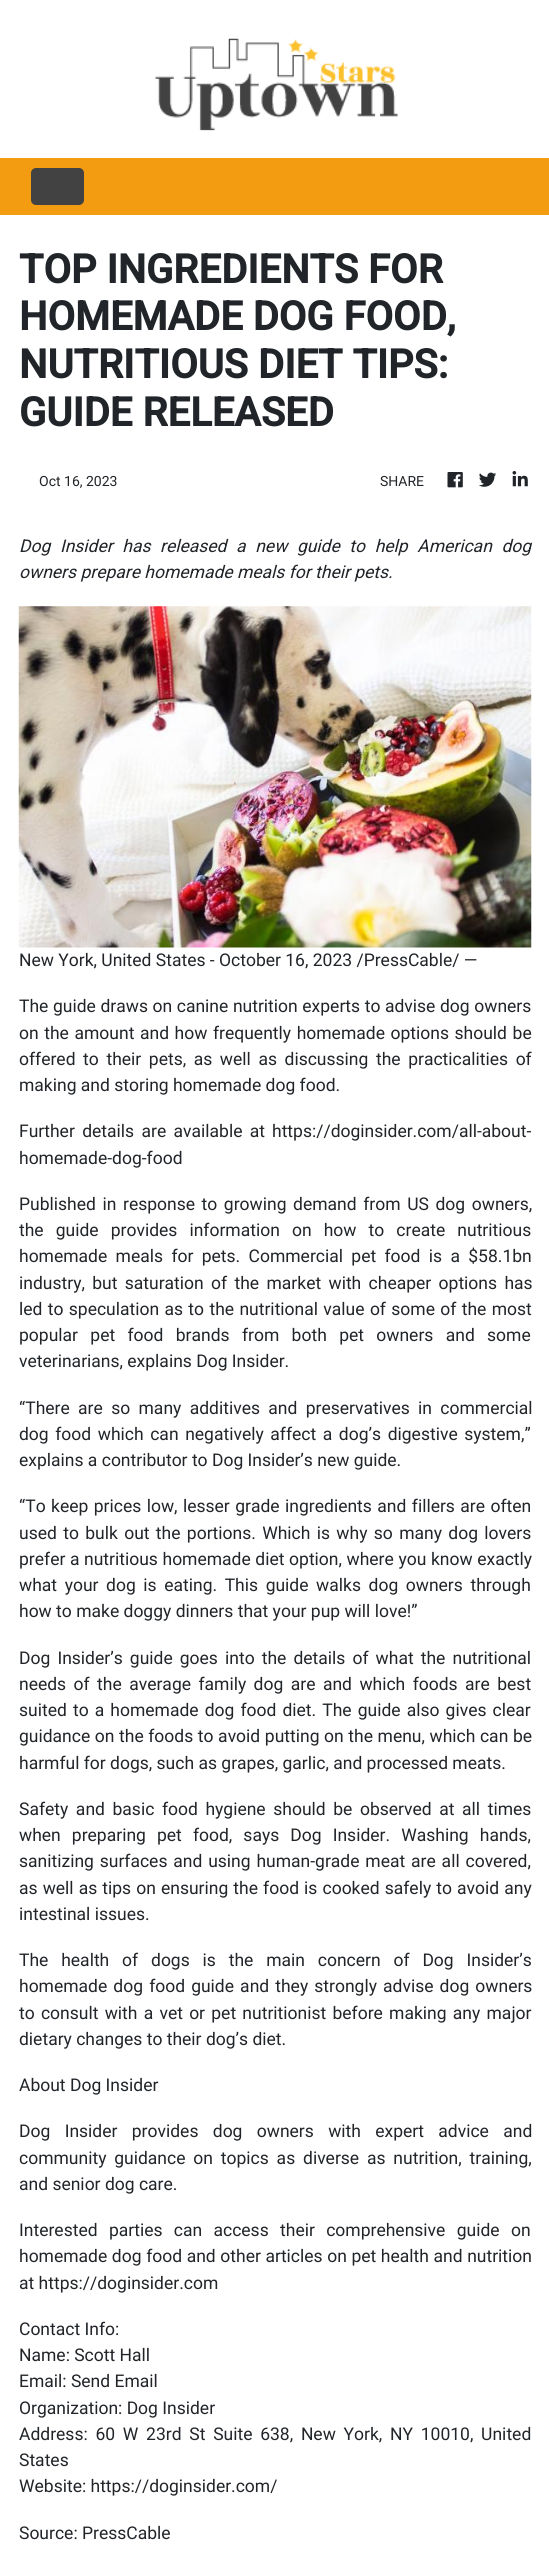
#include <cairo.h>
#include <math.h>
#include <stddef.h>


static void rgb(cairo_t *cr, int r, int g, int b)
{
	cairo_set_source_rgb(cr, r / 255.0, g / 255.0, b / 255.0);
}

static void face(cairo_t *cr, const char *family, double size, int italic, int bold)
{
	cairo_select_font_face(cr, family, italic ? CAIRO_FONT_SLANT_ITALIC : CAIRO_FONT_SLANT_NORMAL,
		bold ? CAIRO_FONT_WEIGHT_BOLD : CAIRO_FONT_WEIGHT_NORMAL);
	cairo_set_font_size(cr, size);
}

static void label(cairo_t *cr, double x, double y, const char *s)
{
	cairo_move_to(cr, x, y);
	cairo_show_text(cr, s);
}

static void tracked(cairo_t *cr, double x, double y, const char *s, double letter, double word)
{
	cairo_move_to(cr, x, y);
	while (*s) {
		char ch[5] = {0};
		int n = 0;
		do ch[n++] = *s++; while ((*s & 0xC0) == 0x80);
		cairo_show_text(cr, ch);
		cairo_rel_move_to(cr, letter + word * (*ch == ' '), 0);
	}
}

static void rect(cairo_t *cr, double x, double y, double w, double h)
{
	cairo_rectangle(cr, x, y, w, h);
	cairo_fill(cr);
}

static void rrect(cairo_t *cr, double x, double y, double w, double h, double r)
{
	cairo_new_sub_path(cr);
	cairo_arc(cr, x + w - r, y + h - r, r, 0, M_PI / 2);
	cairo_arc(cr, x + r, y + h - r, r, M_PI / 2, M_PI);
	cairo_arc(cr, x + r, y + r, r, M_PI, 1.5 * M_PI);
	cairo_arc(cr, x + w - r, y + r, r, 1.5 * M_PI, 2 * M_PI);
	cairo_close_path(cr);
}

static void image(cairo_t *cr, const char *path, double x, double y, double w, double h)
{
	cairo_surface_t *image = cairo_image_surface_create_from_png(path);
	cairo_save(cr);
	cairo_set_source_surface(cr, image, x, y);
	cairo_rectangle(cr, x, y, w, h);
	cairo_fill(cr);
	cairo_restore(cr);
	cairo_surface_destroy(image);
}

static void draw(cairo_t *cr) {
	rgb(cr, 255, 255, 255);
	cairo_paint(cr);
	image(cr, "image0.png", 154, 38, 244, 93);
	rgb(cr, 243, 156, 18);
	rect(cr, 0, 158, 549, 57);
	rgb(cr, 66, 66, 66);
	rrect(cr, 31, 168, 53, 37, 5);
	cairo_fill(cr);
	face(cr, "Roboto", 40, 0, 1);
	rgb(cr, 33, 37, 41);
	label(cr, 19, 283, "TOP INGREDIENTS FOR");
	label(cr, 19, 330, "HOMEMADE DOG FOOD,");
	label(cr, 19, 378, "NUTRITIOUS DIET TIPS:");
	label(cr, 19, 426, "GUIDE RELEASED");
	face(cr, "Roboto", 14, 0, 0);
	label(cr, 39, 486, "Oct 16, 2023");
	label(cr, 380, 486, "SHARE");
	image(cr, "image1.png", 447, 472, 16, 16);
	image(cr, "image2.png", 479, 472, 18, 15);
	image(cr, "image3.png", 512, 471, 16, 16);
	face(cr, "Roboto", 17.5, 1, 0);
	tracked(cr, 19, 552, "Dog Insider has released a new guide to help American dog", 0, 5.25);
	label(cr, 19, 578, "owners prepare homemade meals for their pets.");
	image(cr, "image4.png", 18, 606, 514, 342);
	face(cr, "Roboto", 17.5, 0, 0);
	label(cr, 19, 966, "New York, United States - October 16, 2023 /PressCable/ —");
	tracked(cr, 19, 1012, "The guide draws on canine nutrition experts to advise dog owners", 0, 0.25);
	tracked(cr, 19, 1039, "on the amount and how frequently homemade options should be", 0, 1.25);
	tracked(cr, 19, 1065, "offered to their pets, as well as discussing the practicalities of", 0, 3.25);
	label(cr, 19, 1091, "making and storing homemade dog food.");
	tracked(cr, 19, 1137, "Further details are available at", 0, 3);
	label(cr, 272, 1137, "https://doginsider.com/all-about-");
	label(cr, 19, 1164, "homemade-dog-food");
	tracked(cr, 19, 1210, "Published in response to growing demand from US dog owners,", 0, 2.25);
	tracked(cr, 19, 1236, "the guide provides information on how to create nutritious", 0, 7.75);
	tracked(cr, 19, 1262, "homemade meals for pets. Commercial pet food is a $58.1bn", 0, 4);
	tracked(cr, 19, 1289, "industry, but saturation of the market with cheaper options has", 0, 3);
	tracked(cr, 19, 1315, "led to speculation as to the nutritional value of some of the most", 0, 1);
	tracked(cr, 19, 1341, "popular pet food brands from both pet owners and some", 0, 8);
	label(cr, 19, 1367, "veterinarians, explains Dog Insider.");
	tracked(cr, 19, 1414, "“There are so many additives and preservatives in commercial", 0, 4);
	tracked(cr, 19, 1440, "dog food which can negatively affect a dog’s digestive system,”", 0, 2.25);
	label(cr, 19, 1466, "explains a contributor to Dog Insider’s new guide.");
	tracked(cr, 19, 1512, "“To keep prices low, lesser grade ingredients and fillers are often", 0, 1.1);
	tracked(cr, 19, 1539, "used to bulk out the portions. Which is why so many dog lovers", 0, 2);
	tracked(cr, 19, 1565, "prefer a nutritious homemade diet option, where you know exactly", 0, 0.25);
	tracked(cr, 19, 1591, "what your dog is eating. This guide walks dog owners through", 0, 3.25);
	label(cr, 19, 1617, "how to make doggy dinners that your pup will love!”");
	tracked(cr, 19, 1664, "Dog Insider’s guide goes into the details of what the nutritional", 0, 2.75);
	tracked(cr, 19, 1690, "needs of the average family dog are and which foods are best", 0, 3.1);
	tracked(cr, 19, 1716, "suited to a homemade dog food diet. The guide also gives clear", 0, 1.75);
	tracked(cr, 19, 1742, "guidance on the foods to avoid putting on the menu, which can be", 0, 0.25);
	label(cr, 19, 1769, "harmful for dogs, such as grapes, garlic, and processed meats.");
	tracked(cr, 19, 1815, "Safety and basic food hygiene should be observed at all times", 0, 3.25);
	tracked(cr, 19, 1841, "when preparing pet food, says Dog Insider. Washing hands,", 0, 6.75);
	tracked(cr, 19, 1867, "sanitizing surfaces and using human-grade meat are all covered,", 0, 1.5);
	tracked(cr, 19, 1894, "as well as tips on ensuring the food is cooked safely to avoid any", 0, 0.75);
	label(cr, 19, 1920, "intestinal issues.");
	tracked(cr, 19, 1966, "The health of dogs is the main concern of Dog Insider’s", 0, 8.5);
	tracked(cr, 19, 1992, "homemade dog food guide and they strongly advise dog owners", 0, 1.75);
	tracked(cr, 19, 2019, "to consult with a vet or pet nutritionist before making any major", 0, 1.9);
	label(cr, 19, 2045, "dietary changes to their dog’s diet.");
	label(cr, 19, 2091, "About Dog Insider");
	tracked(cr, 19, 2137, "Dog Insider provides dog owners with expert advice and", 0, 10);
	tracked(cr, 19, 2164, "community guidance on topics as diverse as nutrition, training,", 0, 3.5);
	label(cr, 19, 2190, "and senior dog care.");
	tracked(cr, 19, 2236, "Interested parties can access their comprehensive guide on", 0, 7);
	tracked(cr, 19, 2262, "homemade dog food and other articles on pet health and nutrition", 0, 0.25);
	label(cr, 19, 2289, "at https://doginsider.com");
	label(cr, 19, 2335, "Contact Info:");
	label(cr, 19, 2361, "Name: Scott Hall");
	label(cr, 19, 2387, "Email: Send Email");
	label(cr, 19, 2414, "Organization: Dog Insider");
	tracked(cr, 19, 2440, "Address: 60 W 23rd St Suite 638, New York, NY 10010, United", 0, 3.4);
	label(cr, 19, 2466, "States");
	label(cr, 19, 2492, "Website: https://doginsider.com/");
	label(cr, 19, 2539, "Source: PressCable");
}

int main(void) {
	cairo_surface_t *surface = cairo_image_surface_create(CAIRO_FORMAT_RGB24, 549, 2555);
	cairo_t *cr = cairo_create(surface);
	cairo_font_options_t *options = cairo_font_options_create();
	cairo_font_options_set_hint_metrics(options, CAIRO_HINT_METRICS_OFF);
	cairo_font_options_set_hint_style(options, CAIRO_HINT_STYLE_NONE);
	cairo_set_font_options(cr, options);
	cairo_set_miter_limit(cr, 4);
	draw(cr);
	cairo_surface_write_to_png(surface, "render.png");
	cairo_font_options_destroy(options);
	cairo_destroy(cr);
	cairo_surface_destroy(surface);
	return 0;
}
